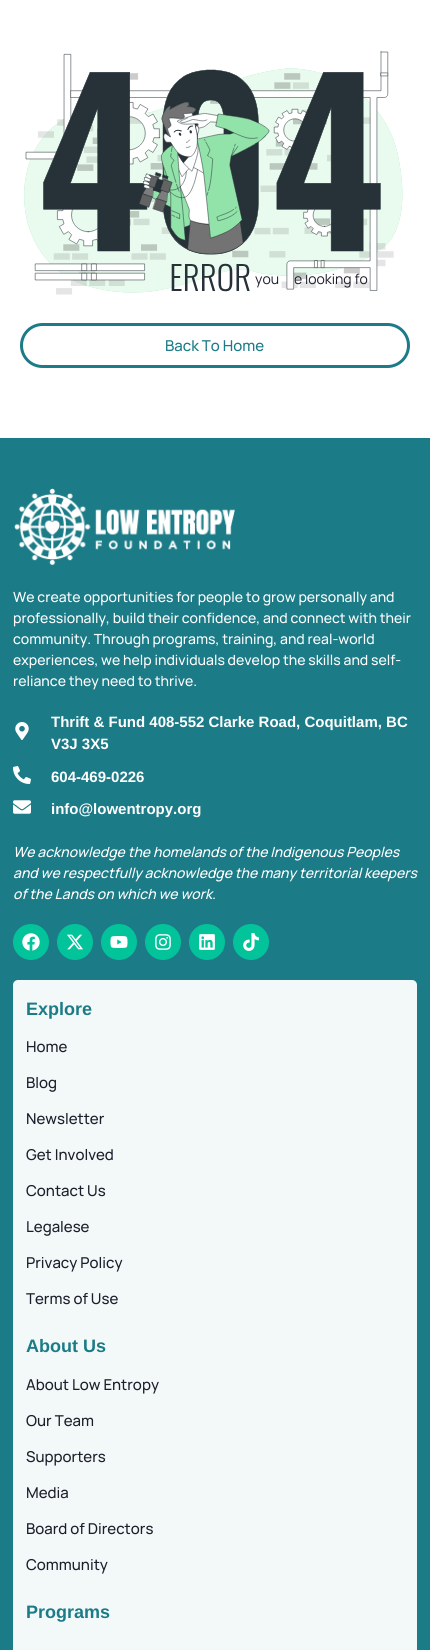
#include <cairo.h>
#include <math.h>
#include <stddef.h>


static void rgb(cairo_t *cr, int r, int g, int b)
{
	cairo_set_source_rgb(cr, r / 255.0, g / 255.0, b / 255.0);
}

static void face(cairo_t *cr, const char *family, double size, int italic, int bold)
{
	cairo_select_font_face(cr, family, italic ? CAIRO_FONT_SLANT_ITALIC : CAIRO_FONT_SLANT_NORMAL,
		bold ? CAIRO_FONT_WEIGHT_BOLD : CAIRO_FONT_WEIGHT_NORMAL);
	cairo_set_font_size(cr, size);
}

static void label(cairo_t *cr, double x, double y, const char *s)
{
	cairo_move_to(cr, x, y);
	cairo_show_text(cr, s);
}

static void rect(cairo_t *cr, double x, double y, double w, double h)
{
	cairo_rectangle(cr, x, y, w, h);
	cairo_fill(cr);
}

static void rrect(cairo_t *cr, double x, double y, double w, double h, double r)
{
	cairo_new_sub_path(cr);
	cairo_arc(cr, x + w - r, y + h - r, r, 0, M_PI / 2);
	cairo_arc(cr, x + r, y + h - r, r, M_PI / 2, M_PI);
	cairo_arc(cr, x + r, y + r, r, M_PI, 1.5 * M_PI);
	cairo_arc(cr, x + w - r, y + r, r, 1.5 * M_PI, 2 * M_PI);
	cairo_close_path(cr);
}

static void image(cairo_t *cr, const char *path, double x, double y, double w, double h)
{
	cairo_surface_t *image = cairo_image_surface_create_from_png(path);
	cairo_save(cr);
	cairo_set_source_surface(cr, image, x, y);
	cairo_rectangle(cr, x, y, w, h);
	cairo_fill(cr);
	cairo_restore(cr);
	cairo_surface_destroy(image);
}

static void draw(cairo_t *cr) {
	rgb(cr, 255, 255, 255);
	cairo_paint(cr);
	face(cr, "Manrope", 14, 0, 0);
	rgb(cr, 29, 30, 44);
	label(cr, 255, 284, "you");
	label(cr, 294, 284, "e looking fo");
	image(cr, "image0.png", 24, 51, 379, 244);
	rrect(cr, 21.5, 324.5, 387, 42, 21);
	rgb(cr, 27, 123, 135);
	cairo_set_line_width(cr, 3);
	cairo_stroke(cr);
	face(cr, "Manrope Medium", 15, 0, 0);
	label(cr, 165, 351, "Back To Home");
	rect(cr, 0, 438, 430, 1212);
	image(cr, "image1.png", 14, 488, 221, 78);
	face(cr, "Manrope Medium", 14, 0, 0);
	rgb(cr, 255, 255, 255);
	label(cr, 13, 602, "We create opportunities for people to grow personally and");
	label(cr, 13, 623, "professionally, build their confidence, and connect with their");
	label(cr, 13, 644, "community. Through programs, training, and real-world");
	label(cr, 13, 665, "experiences, we help individuals develop the skills and self-");
	label(cr, 13, 686, "reliance they need to thrive.");
	image(cr, "image2.png", 15, 722, 14, 18);
	face(cr, "Liberation Sans", 15, 0, 1);
	label(cr, 51, 727, "Thrift & Fund 408-552 Clarke Road, Coquitlam, BC");
	label(cr, 51, 749, "V3J 3X5");
	image(cr, "image3.png", 13, 766, 18, 18);
	label(cr, 51, 782, "604-469-0226");
	image(cr, "image4.png", 13, 800, 18, 14);
	label(cr, 51, 814, "info@lowentropy.org");
	face(cr, "Manrope Medium", 14, 1, 0);
	label(cr, 13, 857, "We acknowledge the homelands of the Indigenous Peoples");
	label(cr, 13, 878, "and we respectfully acknowledge the many territorial keepers");
	label(cr, 13, 899, "of the Lands on which we work.");
	rgb(cr, 2, 195, 154);
	cairo_new_path(cr);
	cairo_arc(cr, 31, 942, 18, 0, 2 * M_PI);
	cairo_fill(cr);
	image(cr, "image5.png", 22, 933, 18, 18);
	cairo_arc(cr, 75, 942, 18, 0, 2 * M_PI);
	cairo_fill(cr);
	image(cr, "image6.png", 67, 934, 16, 16);
	cairo_arc(cr, 119, 942, 18, 0, 2 * M_PI);
	cairo_fill(cr);
	image(cr, "image7.png", 110, 936, 18, 12);
	cairo_arc(cr, 163, 942, 18, 0, 2 * M_PI);
	cairo_fill(cr);
	image(cr, "image8.png", 155, 934, 16, 16);
	cairo_arc(cr, 207, 942, 18, 0, 2 * M_PI);
	cairo_fill(cr);
	image(cr, "image9.png", 199, 934, 16, 16);
	cairo_arc(cr, 251, 942, 18, 0, 2 * M_PI);
	cairo_fill(cr);
	image(cr, "image10.png", 243, 933, 16, 18);
	rgb(cr, 243, 249, 249);
	rrect(cr, 13, 980, 404, 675, 5);
	cairo_fill(cr);
	face(cr, "Liberation Sans", 18, 0, 1);
	rgb(cr, 27, 123, 135);
	label(cr, 26, 1015, "Explore");
	face(cr, "Manrope Medium", 15, 0, 0);
	rgb(cr, 29, 30, 44);
	label(cr, 26, 1052, "Home");
	label(cr, 26, 1088, "Blog");
	label(cr, 26, 1124, "Newsletter");
	label(cr, 26, 1160, "Get Involved");
	label(cr, 26, 1196, "Contact Us");
	label(cr, 26, 1232, "Legalese");
	label(cr, 26, 1268, "Privacy Policy");
	label(cr, 26, 1304, "Terms of Use");
	face(cr, "Liberation Sans", 18, 0, 1);
	rgb(cr, 27, 123, 135);
	label(cr, 26, 1352, "About Us");
	face(cr, "Manrope Medium", 15, 0, 0);
	rgb(cr, 29, 30, 44);
	label(cr, 26, 1390, "About Low Entropy");
	label(cr, 26, 1426, "Our Team");
	label(cr, 26, 1462, "Supporters");
	label(cr, 26, 1498, "Media");
	label(cr, 26, 1534, "Board of Directors");
	label(cr, 26, 1570, "Community");
	face(cr, "Liberation Sans", 18, 0, 1);
	rgb(cr, 27, 123, 135);
	label(cr, 26, 1618, "Programs");
}

int main(void) {
	cairo_surface_t *surface = cairo_image_surface_create(CAIRO_FORMAT_RGB24, 430, 1650);
	cairo_t *cr = cairo_create(surface);
	cairo_font_options_t *options = cairo_font_options_create();
	cairo_font_options_set_hint_metrics(options, CAIRO_HINT_METRICS_OFF);
	cairo_font_options_set_hint_style(options, CAIRO_HINT_STYLE_NONE);
	cairo_set_font_options(cr, options);
	cairo_set_miter_limit(cr, 4);
	draw(cr);
	cairo_surface_write_to_png(surface, "render.png");
	cairo_font_options_destroy(options);
	cairo_destroy(cr);
	cairo_surface_destroy(surface);
	return 0;
}
